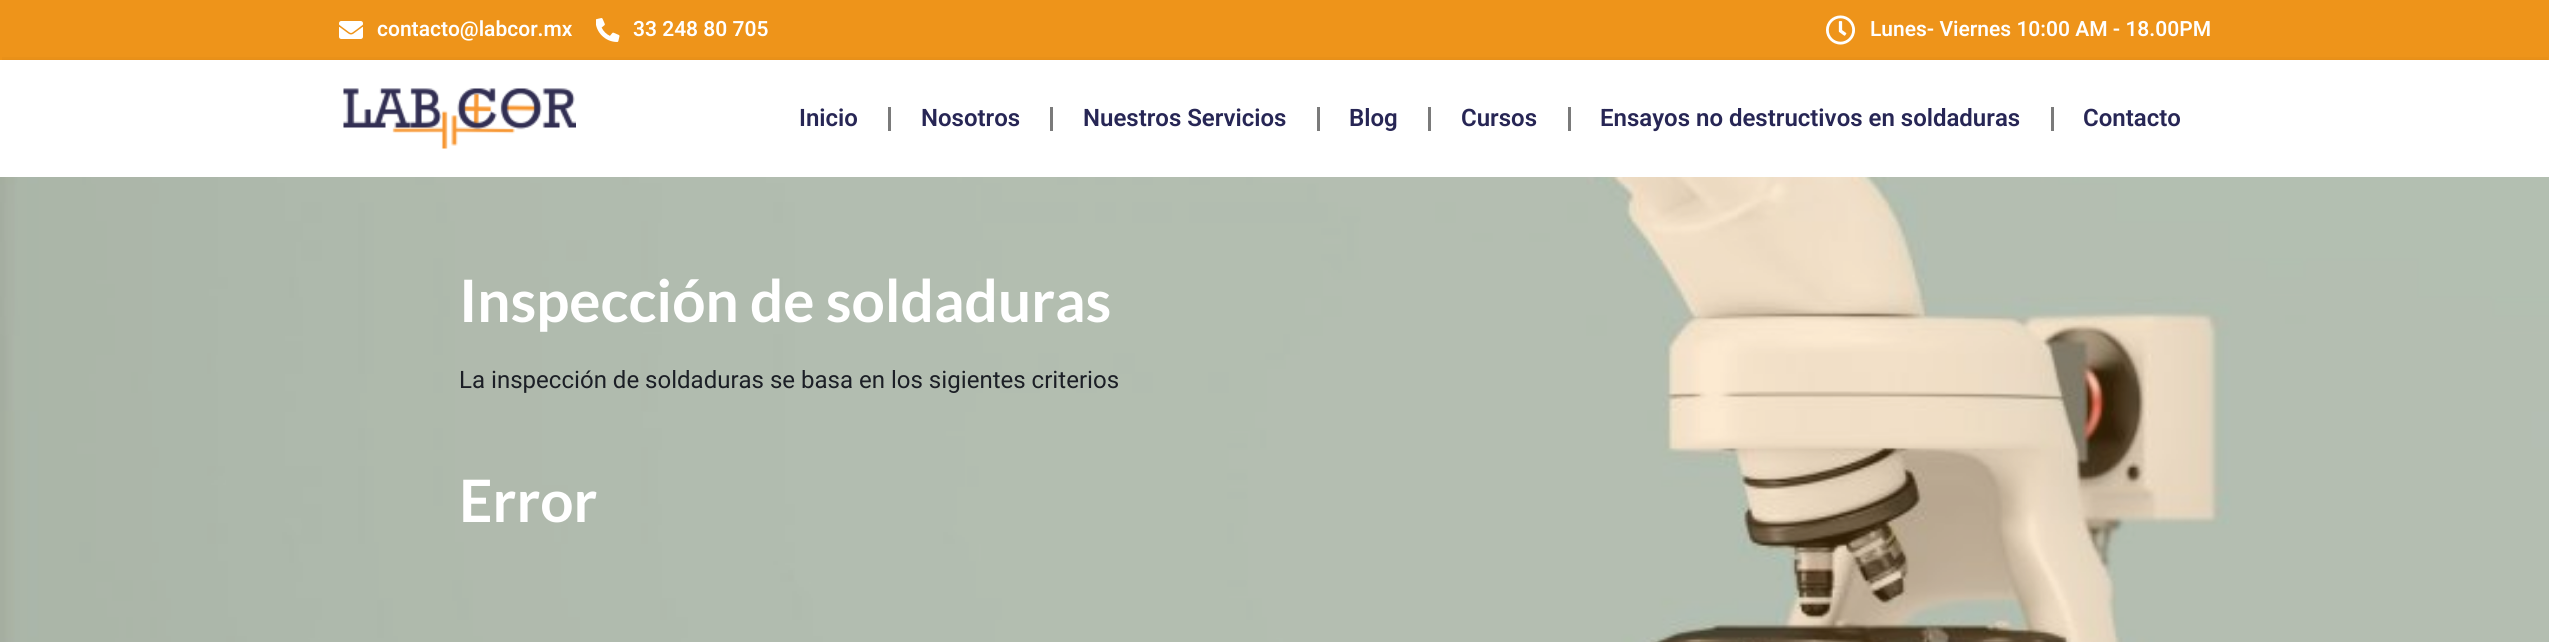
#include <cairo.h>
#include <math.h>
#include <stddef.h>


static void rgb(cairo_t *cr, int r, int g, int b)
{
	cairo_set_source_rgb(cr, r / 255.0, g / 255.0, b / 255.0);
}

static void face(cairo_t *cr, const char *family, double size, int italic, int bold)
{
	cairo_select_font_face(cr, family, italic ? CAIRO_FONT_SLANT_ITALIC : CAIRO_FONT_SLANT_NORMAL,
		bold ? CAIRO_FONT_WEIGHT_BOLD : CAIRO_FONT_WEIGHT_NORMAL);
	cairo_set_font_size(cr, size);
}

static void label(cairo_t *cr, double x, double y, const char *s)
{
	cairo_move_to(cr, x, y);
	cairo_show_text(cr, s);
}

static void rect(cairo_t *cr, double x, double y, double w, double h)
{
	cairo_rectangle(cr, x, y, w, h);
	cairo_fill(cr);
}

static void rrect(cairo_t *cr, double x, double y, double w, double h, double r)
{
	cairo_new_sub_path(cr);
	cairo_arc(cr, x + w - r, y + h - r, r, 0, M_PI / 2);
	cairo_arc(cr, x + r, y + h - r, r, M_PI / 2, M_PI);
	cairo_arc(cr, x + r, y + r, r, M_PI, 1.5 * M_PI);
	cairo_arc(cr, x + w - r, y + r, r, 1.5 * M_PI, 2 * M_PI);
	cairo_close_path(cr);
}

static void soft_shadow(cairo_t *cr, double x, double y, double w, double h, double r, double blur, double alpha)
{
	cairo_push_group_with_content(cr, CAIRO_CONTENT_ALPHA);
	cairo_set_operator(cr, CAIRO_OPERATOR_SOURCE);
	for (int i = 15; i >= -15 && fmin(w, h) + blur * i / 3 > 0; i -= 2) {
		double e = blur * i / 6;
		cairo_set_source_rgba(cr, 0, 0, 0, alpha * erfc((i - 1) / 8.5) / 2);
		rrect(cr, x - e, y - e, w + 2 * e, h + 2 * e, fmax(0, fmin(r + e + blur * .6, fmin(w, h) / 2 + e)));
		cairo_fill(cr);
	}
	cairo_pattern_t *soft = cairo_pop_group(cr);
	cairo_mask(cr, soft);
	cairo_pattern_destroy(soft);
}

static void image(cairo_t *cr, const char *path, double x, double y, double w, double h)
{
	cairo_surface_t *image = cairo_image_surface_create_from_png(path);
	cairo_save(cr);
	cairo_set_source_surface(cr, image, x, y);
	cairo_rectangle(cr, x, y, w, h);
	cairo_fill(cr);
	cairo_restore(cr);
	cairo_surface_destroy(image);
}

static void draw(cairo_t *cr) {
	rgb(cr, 255, 255, 255);
	cairo_paint(cr);
	rgb(cr, 238, 148, 26);
	rect(cr, 0, 0, 2549, 60);
	image(cr, "image0.png", 339, 21, 24, 18);
	face(cr, "Heebo SemiBold", 21, 0, 0);
	rgb(cr, 255, 255, 255);
	label(cr, 377, 36, "contacto@labcor.mx");
	image(cr, "image1.png", 596, 18, 24, 24);
	label(cr, 633, 36, "33 248 80 705");
	image(cr, "image2.png", 1826, 15, 29, 30);
	label(cr, 1870, 36, "Lunes- Viernes 10:00 AM - 18.00PM");
	cairo_save(cr);
	cairo_rectangle(cr, 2, 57, 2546, 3);
	cairo_clip(cr);
	rgb(cr, 0, 0, 0);
	soft_shadow(cr, 0, 68, 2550, 117, 0, 7.5, 0.25);
	cairo_restore(cr);
	image(cr, "image3.png", 343, 88, 233, 61);
	face(cr, "Roboto SemiBold", 24, 0, 0);
	rgb(cr, 39, 38, 85);
	label(cr, 799, 126, "Inicio");
	rgb(cr, 122, 122, 122);
	rect(cr, 888, 107, 3, 24);
	rgb(cr, 39, 38, 85);
	label(cr, 921, 126, "Nosotros");
	rgb(cr, 122, 122, 122);
	rect(cr, 1050, 107, 3, 24);
	rgb(cr, 39, 38, 85);
	label(cr, 1083, 126, "Nuestros Servicios");
	rgb(cr, 122, 122, 122);
	rect(cr, 1317, 107, 3, 24);
	rgb(cr, 39, 38, 85);
	label(cr, 1349, 126, "Blog");
	rgb(cr, 122, 122, 122);
	rect(cr, 1428, 107, 3, 24);
	rgb(cr, 39, 38, 85);
	label(cr, 1461, 126, "Cursos");
	rgb(cr, 122, 122, 122);
	rect(cr, 1568, 107, 3, 24);
	rgb(cr, 39, 38, 85);
	label(cr, 1600, 126, "Ensayos no destructivos en soldaduras");
	rgb(cr, 122, 122, 122);
	rect(cr, 2051, 107, 3, 24);
	rgb(cr, 39, 38, 85);
	label(cr, 2083, 126, "Contacto");
	image(cr, "image4.png", 0, 177, 2549, 465);
	face(cr, "Lato", 58.5, 0, 1);
	rgb(cr, 255, 255, 255);
	label(cr, 459, 322, "Inspección de soldaduras");
	face(cr, "Heebo", 24, 0, 0);
	rgb(cr, 28, 31, 38);
	label(cr, 459, 388, "La inspección de soldaduras se basa en los sigientes criterios");
	face(cr, "Lato", 58.5, 0, 1);
	rgb(cr, 255, 255, 255);
	label(cr, 459, 522, "Error");
}

int main(void) {
	cairo_surface_t *surface = cairo_image_surface_create(CAIRO_FORMAT_RGB24, 2549, 642);
	cairo_t *cr = cairo_create(surface);
	cairo_font_options_t *options = cairo_font_options_create();
	cairo_font_options_set_hint_metrics(options, CAIRO_HINT_METRICS_OFF);
	cairo_font_options_set_hint_style(options, CAIRO_HINT_STYLE_NONE);
	cairo_set_font_options(cr, options);
	cairo_set_miter_limit(cr, 4);
	draw(cr);
	cairo_surface_write_to_png(surface, "render.png");
	cairo_font_options_destroy(options);
	cairo_destroy(cr);
	cairo_surface_destroy(surface);
	return 0;
}
